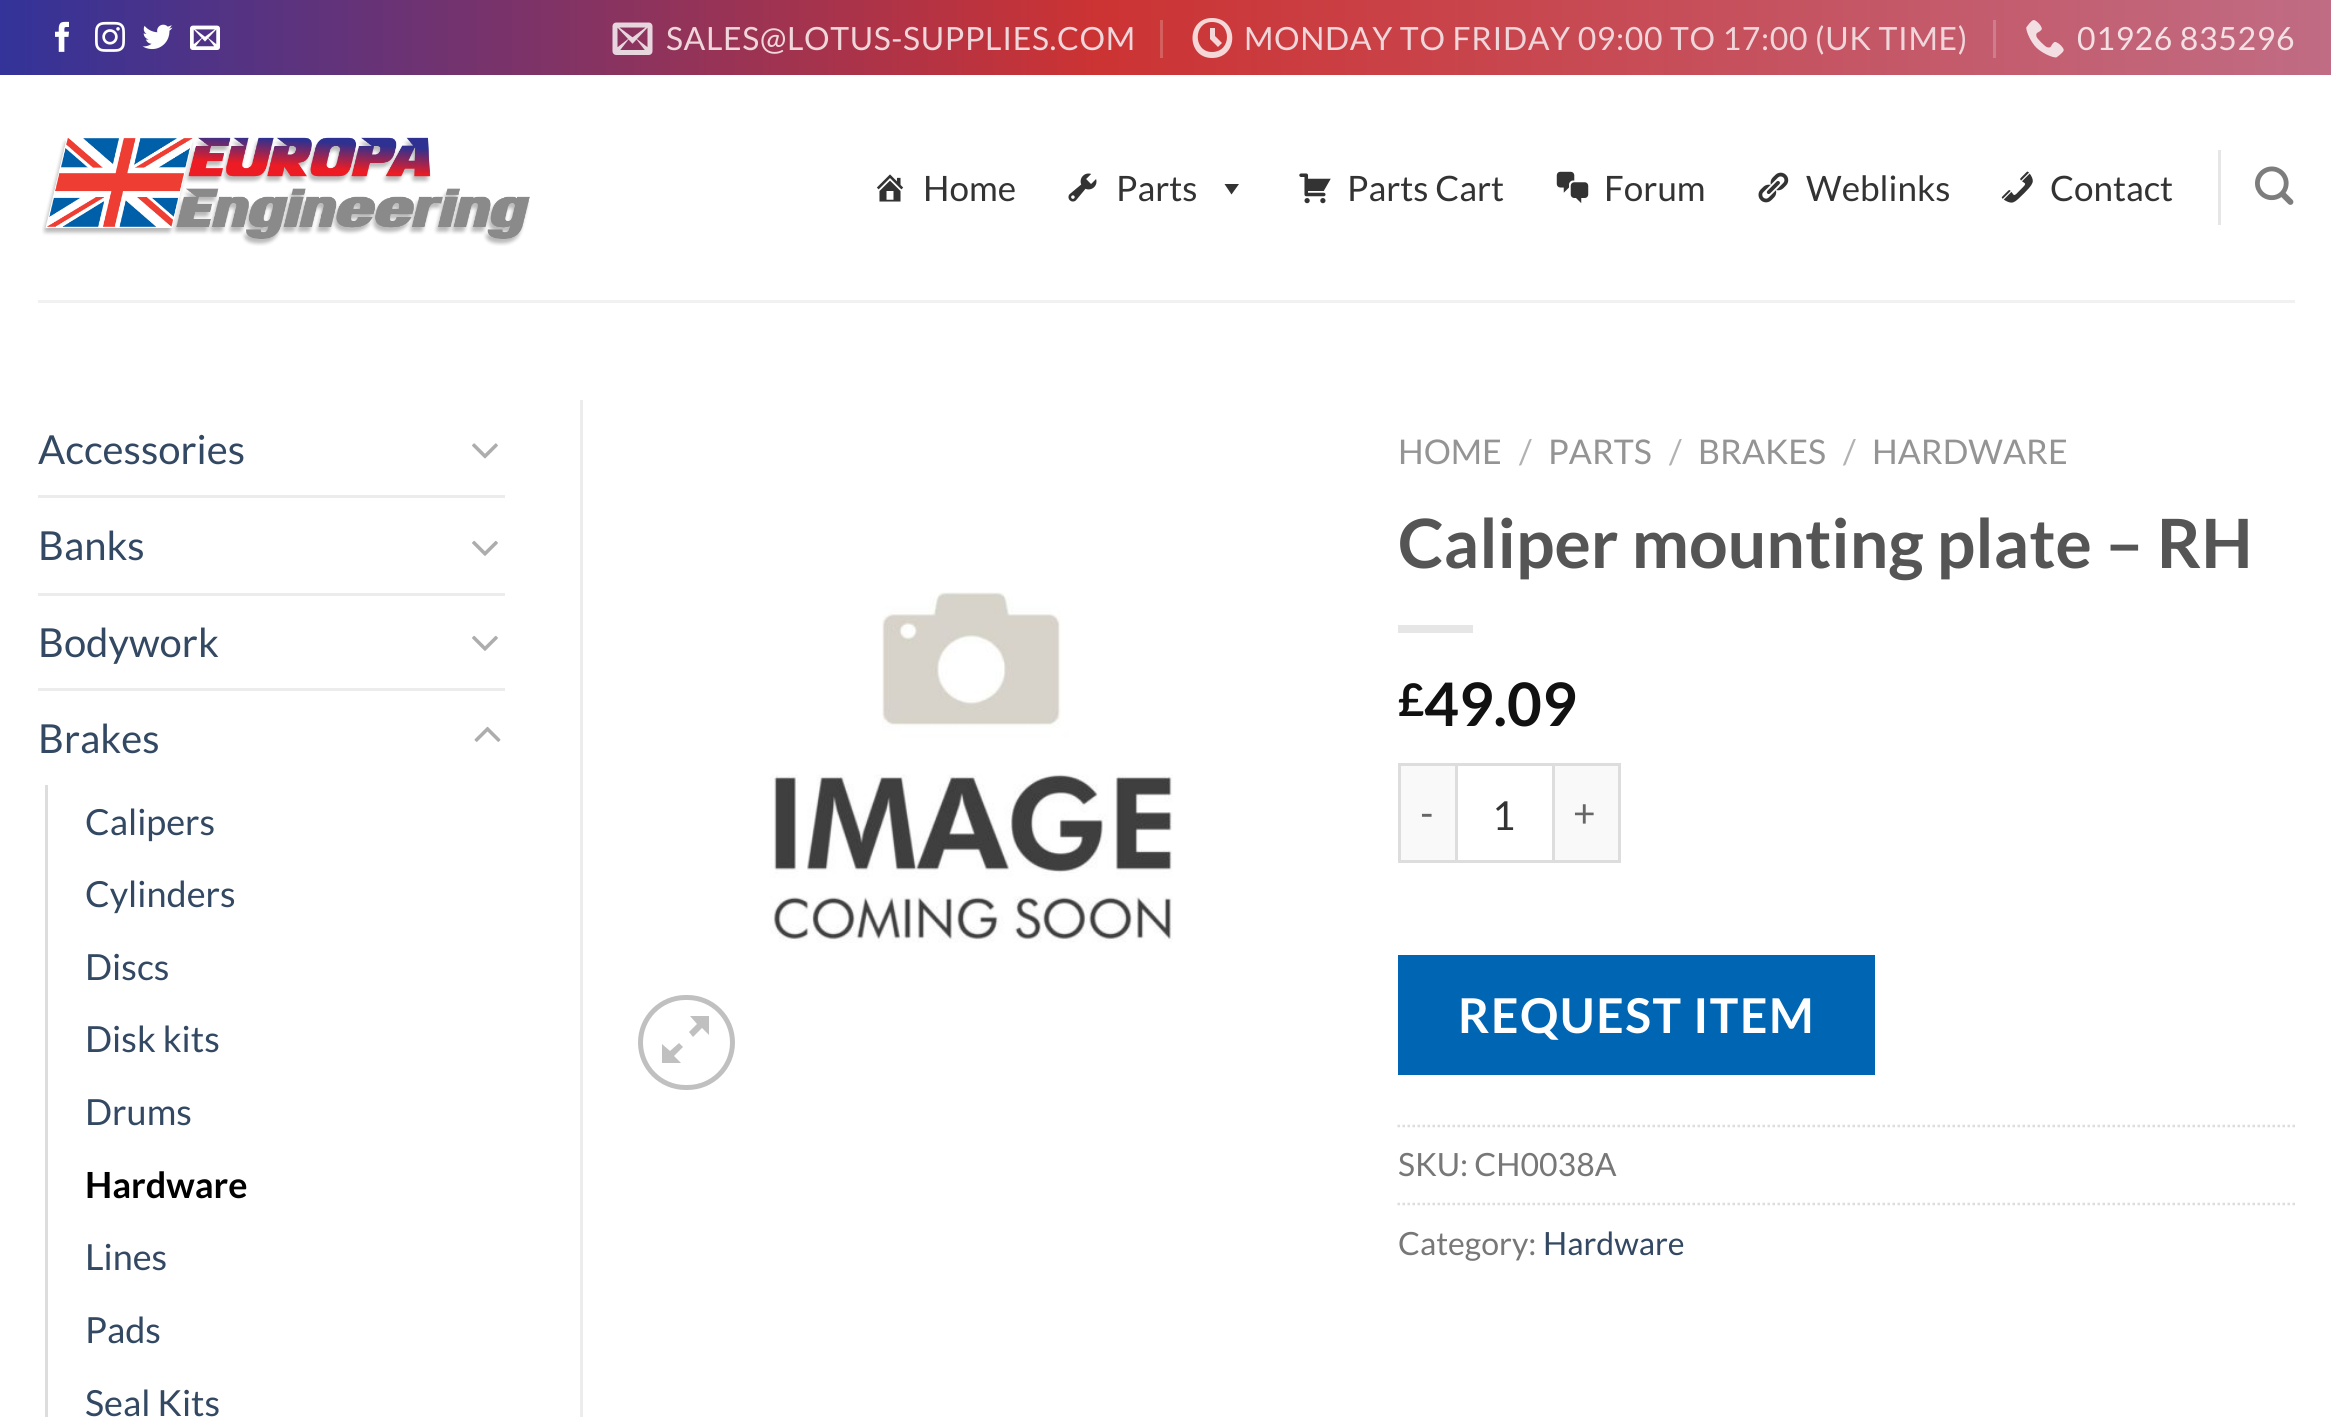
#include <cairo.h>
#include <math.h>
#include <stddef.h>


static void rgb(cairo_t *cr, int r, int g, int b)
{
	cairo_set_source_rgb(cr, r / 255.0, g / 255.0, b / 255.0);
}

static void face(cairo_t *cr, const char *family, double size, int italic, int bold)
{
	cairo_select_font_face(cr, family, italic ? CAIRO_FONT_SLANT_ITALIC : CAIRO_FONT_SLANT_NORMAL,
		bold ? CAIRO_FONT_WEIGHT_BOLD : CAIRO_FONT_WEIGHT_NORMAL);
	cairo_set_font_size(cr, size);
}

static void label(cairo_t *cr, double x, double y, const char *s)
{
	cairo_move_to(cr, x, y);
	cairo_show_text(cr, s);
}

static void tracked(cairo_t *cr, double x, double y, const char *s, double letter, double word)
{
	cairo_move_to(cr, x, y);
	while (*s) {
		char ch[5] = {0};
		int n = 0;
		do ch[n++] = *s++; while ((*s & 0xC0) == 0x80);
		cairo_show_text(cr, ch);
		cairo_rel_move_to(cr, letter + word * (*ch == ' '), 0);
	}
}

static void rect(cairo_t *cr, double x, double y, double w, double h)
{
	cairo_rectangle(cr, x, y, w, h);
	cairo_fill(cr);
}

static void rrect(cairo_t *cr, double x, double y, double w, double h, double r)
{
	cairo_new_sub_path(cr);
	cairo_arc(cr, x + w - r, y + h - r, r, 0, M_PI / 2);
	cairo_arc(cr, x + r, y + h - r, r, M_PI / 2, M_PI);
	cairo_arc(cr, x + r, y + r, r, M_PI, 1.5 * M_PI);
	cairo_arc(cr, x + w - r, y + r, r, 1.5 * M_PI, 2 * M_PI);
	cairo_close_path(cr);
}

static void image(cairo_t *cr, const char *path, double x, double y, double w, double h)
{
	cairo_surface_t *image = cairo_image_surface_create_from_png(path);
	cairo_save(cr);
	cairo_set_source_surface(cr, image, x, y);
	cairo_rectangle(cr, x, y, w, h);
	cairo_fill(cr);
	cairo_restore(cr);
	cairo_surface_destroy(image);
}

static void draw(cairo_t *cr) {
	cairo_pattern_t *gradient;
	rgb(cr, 255, 255, 255);
	cairo_paint(cr);
	gradient = cairo_pattern_create_linear(0, 38, 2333, 37);
	cairo_pattern_add_color_stop_rgba(gradient, 0, 0.2, 0.2, 0.6, 1);
	cairo_pattern_add_color_stop_rgba(gradient, 0.47, 0.8, 0.2, 0.2, 1);
	cairo_pattern_add_color_stop_rgba(gradient, 1, 0.753, 0.424, 0.518, 1);
	cairo_set_source(cr, gradient);
	cairo_pattern_destroy(gradient);
	rect(cr, 0, 0, 2331, 75);
	image(cr, "image0.png", 55, 21, 14, 31);
	image(cr, "image1.png", 95, 21, 30, 31);
	image(cr, "image2.png", 142, 24, 31, 26);
	image(cr, "image3.png", 190, 25, 30, 25);
	image(cr, "image4.png", 612, 22, 41, 33);
	face(cr, "Lato", 32, 0, 0);
	rgb(cr, 239, 214, 218);
	tracked(cr, 666, 50, "SALES@LOTUS-SUPPLIES.COM", 0.65, 0);
	rgb(cr, 213, 94, 95);
	rect(cr, 1160, 20, 3, 38);
	cairo_set_source_rgba(cr, 1, 1, 1, 0.8);
	cairo_new_path(cr);
	cairo_move_to(cr, 1218, 47);
	cairo_line_to(cr, 1210, 39);
	cairo_line_to(cr, 1210, 28);
	cairo_line_to(cr, 1215, 28);
	cairo_line_to(cr, 1215, 36);
	cairo_line_to(cr, 1222, 43);
	cairo_close_path(cr);
	cairo_move_to(cr, 1212, 18);
	cairo_curve_to(cr, 1186, 18, 1186, 58, 1212, 58);
	cairo_curve_to(cr, 1239, 58, 1239, 18, 1212, 18);
	cairo_close_path(cr);
	cairo_move_to(cr, 1212, 52);
	cairo_curve_to(cr, 1193, 52, 1193, 22, 1212, 22);
	cairo_curve_to(cr, 1232, 22, 1232, 52, 1212, 52);
	cairo_close_path(cr);
	cairo_fill(cr);
	rgb(cr, 239, 214, 218);
	tracked(cr, 1244, 50, "MONDAY TO FRIDAY 09:00 TO 17:00 (UK TIME)", 0.65, 0);
	rgb(cr, 207, 125, 139);
	rect(cr, 1993, 20, 3, 38);
	image(cr, "image5.png", 2026, 20, 38, 38);
	rgb(cr, 243, 224, 228);
	tracked(cr, 2077, 50, "01926 835296", 0.65, 0);
	image(cr, "image6.png", 42, 137, 488, 109);
	image(cr, "image7.png", 876, 174, 28, 28);
	face(cr, "Lato", 35, 0, 0);
	rgb(cr, 51, 51, 51);
	label(cr, 923, 201, "Home");
	image(cr, "image8.png", 1068, 173, 29, 29);
	label(cr, 1116, 201, "Parts");
	cairo_new_path(cr);
	cairo_move_to(cr, 1239, 184);
	cairo_line_to(cr, 1231.5, 194.5);
	cairo_line_to(cr, 1224.5, 184);
	cairo_close_path(cr);
	cairo_fill(cr);
	image(cr, "image9.png", 1299, 173, 32, 31);
	label(cr, 1347, 201, "Parts Cart");
	image(cr, "image10.png", 1556, 171, 33, 33);
	label(cr, 1604, 201, "Forum");
	image(cr, "image11.png", 1758, 172, 31, 31);
	label(cr, 1806, 201, "Weblinks");
	image(cr, "image12.png", 2001, 171, 32, 32);
	label(cr, 2050, 201, "Contact");
	rgb(cr, 230, 230, 230);
	rect(cr, 2218, 150, 3, 75);
	image(cr, "image13.png", 2255, 166, 39, 39);
	rgb(cr, 241, 241, 241);
	rect(cr, 38, 300, 2257, 3);
	rgb(cr, 236, 236, 236);
	rect(cr, 580, 400, 3, 1017);
	face(cr, "Lato", 40, 0, 0);
	rgb(cr, 51, 72, 98);
	label(cr, 38, 464, "Accessories");
	image(cr, "image14.png", 472, 443, 26, 16);
	rgb(cr, 236, 236, 236);
	rect(cr, 38, 495, 467, 3);
	rgb(cr, 51, 72, 98);
	label(cr, 38, 560, "Banks");
	image(cr, "image15.png", 472, 540, 26, 16);
	rgb(cr, 236, 236, 236);
	rect(cr, 38, 593, 467, 3);
	rgb(cr, 51, 72, 98);
	label(cr, 38, 657, "Bodywork");
	image(cr, "image15.png", 472, 635, 26, 16);
	rgb(cr, 236, 236, 236);
	rect(cr, 38, 688, 467, 3);
	rgb(cr, 51, 72, 98);
	label(cr, 38, 753, "Brakes");
	image(cr, "image16.png", 474, 726, 27, 16);
	rgb(cr, 221, 221, 221);
	rect(cr, 45, 785, 3, 632);
	face(cr, "Lato", 36, 0, 0);
	rgb(cr, 51, 72, 98);
	label(cr, 85, 835, "Calipers");
	label(cr, 85, 907, "Cylinders");
	label(cr, 85, 980, "Discs");
	label(cr, 85, 1052, "Disk kits");
	label(cr, 85, 1125, "Drums");
	face(cr, "Lato", 36, 0, 1);
	rgb(cr, 0, 0, 0);
	label(cr, 85, 1198, "Hardware");
	face(cr, "Lato", 36, 0, 0);
	rgb(cr, 51, 72, 98);
	label(cr, 85, 1270, "Lines");
	label(cr, 85, 1343, "Pads");
	label(cr, 85, 1416, "Seal Kits");
	image(cr, "image17.png", 770, 592, 403, 351);
	rrect(cr, 640.5, 997.5, 92, 90, 45);
	rgb(cr, 192, 192, 192);
	cairo_set_line_width(cr, 5);
	cairo_stroke(cr);
	cairo_new_path(cr);
	cairo_move_to(cr, 709, 1016);
	cairo_line_to(cr, 709, 1035);
	cairo_line_to(cr, 702, 1028);
	cairo_line_to(cr, 693, 1037);
	cairo_line_to(cr, 689, 1032);
	cairo_line_to(cr, 697, 1024);
	cairo_line_to(cr, 690, 1016);
	cairo_close_path(cr);
	cairo_move_to(cr, 683, 1047);
	cairo_line_to(cr, 674, 1056);
	cairo_line_to(cr, 681, 1063);
	cairo_line_to(cr, 662, 1063);
	cairo_line_to(cr, 662, 1044);
	cairo_line_to(cr, 670, 1051);
	cairo_line_to(cr, 679, 1043);
	cairo_close_path(cr);
	cairo_fill(cr);
	face(cr, "Lato", 34, 0, 0);
	rgb(cr, 148, 148, 148);
	label(cr, 1398, 464, "HOME");
	rgb(cr, 178, 178, 178);
	label(cr, 1519, 464, "/");
	rgb(cr, 148, 148, 148);
	label(cr, 1548, 464, "PARTS");
	rgb(cr, 178, 178, 178);
	label(cr, 1669, 464, "/");
	rgb(cr, 148, 148, 148);
	label(cr, 1698, 464, "BRAKES");
	rgb(cr, 178, 178, 178);
	label(cr, 1843, 464, "/");
	rgb(cr, 148, 148, 148);
	label(cr, 1872, 464, "HARDWARE");
	face(cr, "Lato", 68, 0, 1);
	rgb(cr, 85, 85, 85);
	label(cr, 1398, 568, "Caliper mounting plate – RH");
	rgb(cr, 230, 230, 230);
	rect(cr, 1398, 625, 75, 8);
	face(cr, "Lato", 45, 0, 1);
	rgb(cr, 17, 17, 17);
	label(cr, 1398, 716, "£");
	face(cr, "Lato", 60, 0, 1);
	label(cr, 1424, 726, "49.09");
	rgb(cr, 249, 249, 249);
	rect(cr, 1401, 766, 54, 94);
	rgb(cr, 221, 221, 221);
	rect(cr, 1398, 763, 57, 3);
	rect(cr, 1398, 860, 57, 3);
	rect(cr, 1398, 763, 3, 100);
	face(cr, "Lato", 39, 0, 0);
	rgb(cr, 102, 102, 102);
	tracked(cr, 1420, 827, "-", 1, 0);
	cairo_rectangle(cr, 1456.5, 764.5, 97, 97);
	rgb(cr, 221, 221, 221);
	cairo_set_line_width(cr, 3);
	cairo_stroke(cr);
	face(cr, "Lato", 40, 0, 0);
	rgb(cr, 51, 51, 51);
	label(cr, 1492, 830, "1");
	rgb(cr, 249, 249, 249);
	rect(cr, 1555, 766, 63, 94);
	rgb(cr, 221, 221, 221);
	rect(cr, 1555, 763, 65, 3);
	rect(cr, 1618, 763, 3, 100);
	rect(cr, 1555, 860, 65, 3);
	face(cr, "Lato", 39, 0, 0);
	rgb(cr, 102, 102, 102);
	tracked(cr, 1573, 827, "+", 1, 0);
	rgb(cr, 0, 102, 180);
	rect(cr, 1398, 955, 477, 120);
	face(cr, "Lato", 48, 0, 1);
	rgb(cr, 255, 255, 255);
	tracked(cr, 1458, 1033, "REQUEST ITEM", 1.5, 0);
	cairo_new_path(cr);
	cairo_move_to(cr, 1397.5, 1126);
	cairo_line_to(cr, 2295, 1126);
	rgb(cr, 221, 221, 221);
	cairo_set_line_width(cr, 2.5);
	cairo_set_dash(cr, (double[]){2.5, 2.5}, 2, 0);
	cairo_stroke(cr);
	face(cr, "Lato", 32, 0, 0);
	rgb(cr, 119, 119, 119);
	label(cr, 1398, 1176, "SKU: CH0038A");
	cairo_new_path(cr);
	cairo_move_to(cr, 1397.5, 1204);
	cairo_line_to(cr, 2295, 1204);
	rgb(cr, 221, 221, 221);
	cairo_stroke(cr);
	rgb(cr, 119, 119, 119);
	label(cr, 1398, 1255, "Category:");
	rgb(cr, 51, 72, 98);
	label(cr, 1543, 1255, "Hardware");
}

int main(void) {
	cairo_surface_t *surface = cairo_image_surface_create(CAIRO_FORMAT_RGB24, 2331, 1417);
	cairo_t *cr = cairo_create(surface);
	cairo_font_options_t *options = cairo_font_options_create();
	cairo_font_options_set_hint_metrics(options, CAIRO_HINT_METRICS_OFF);
	cairo_font_options_set_hint_style(options, CAIRO_HINT_STYLE_NONE);
	cairo_set_font_options(cr, options);
	cairo_set_miter_limit(cr, 4);
	draw(cr);
	cairo_surface_write_to_png(surface, "render.png");
	cairo_font_options_destroy(options);
	cairo_destroy(cr);
	cairo_surface_destroy(surface);
	return 0;
}
